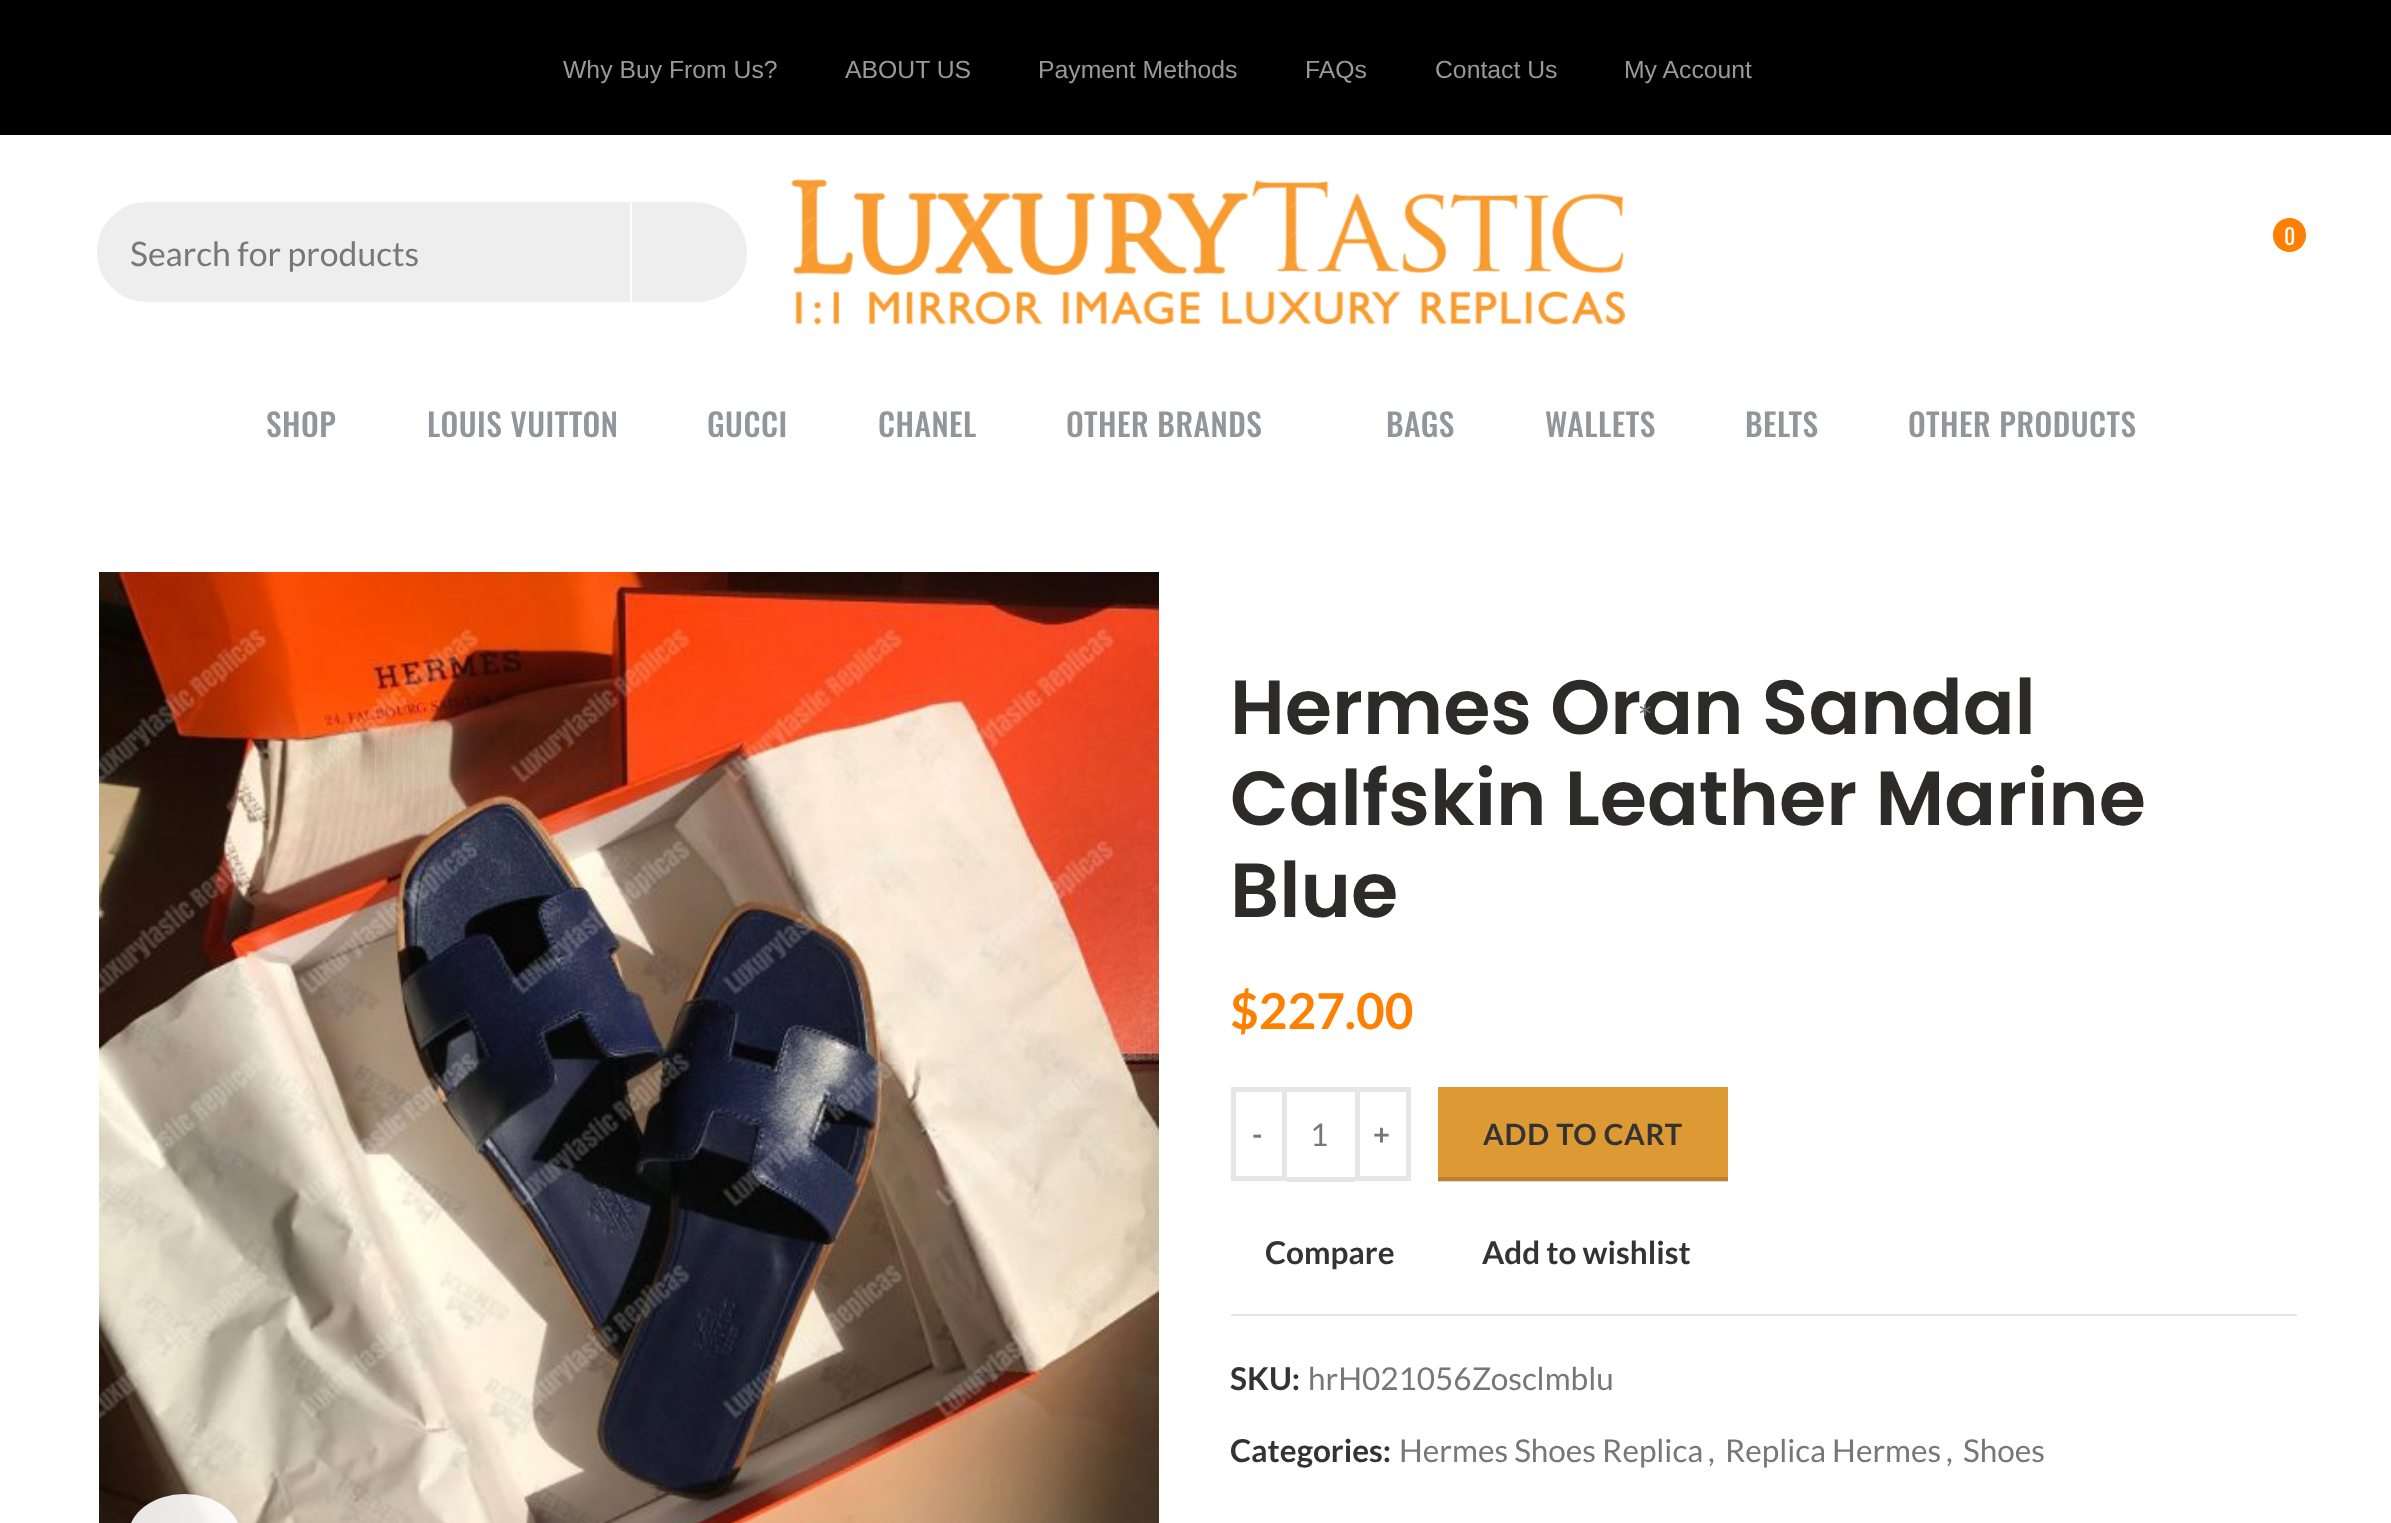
<svg xmlns="http://www.w3.org/2000/svg" width="2391" height="1523">
<rect width="100%" height="100%" fill="#fff"/>
<rect x="1438" y="1181" width="290" height="1" fill="#d9d9d9"/>
<rect width="2391" height="135" fill="#000"/>
<text x="563" y="78" style="font-family:Liberation Sans;font-size:24.75px;fill:#999">Why Buy From Us?</text>
<text x="845" y="78" style="font-family:Liberation Sans;font-size:24.75px;fill:#999">ABOUT US</text>
<text x="1038" y="78" style="font-family:Liberation Sans;font-size:24.75px;fill:#999">Payment Methods</text>
<text x="1305" y="78" style="font-family:Liberation Sans;font-size:24.75px;fill:#999">FAQs</text>
<text x="1435" y="78" style="font-family:Liberation Sans;font-size:24.75px;fill:#999">Contact Us</text>
<text x="1624" y="78" style="font-family:Liberation Sans;font-size:24.75px;fill:#999">My Account</text>
<rect x="96" y="201" width="650" height="102" rx="51" fill="#eee" stroke="#fff" stroke-width="2"/>
<text x="130" y="266" style="font-family:Lato;font-size:33.75px;fill:#777">Search for products</text>
<path d="M630 203h67.5c27.5 0 49.5 22 49.5 49.5c0 27.5-22 49.5-49.5 49.5h-67.5z" fill="#eee"/>
<rect x="630" y="203" width="2" height="99" fill="#fff"/>
<image x="791" y="179" width="834" height="146" href="media/1.png"/>
<rect x="2273" y="218" width="33" height="34" rx="16.5" fill="#ff8000"/>
<text x="2284" y="245" style="font-family:Oswald;font-size:22px;fill:#fff">0</text>
<text x="1230" y="734" style="font-family:Poppins;font-size:76.5px;font-weight:600;fill:#2d2a2a">Hermes Oran Sandal</text>
<text x="1638" y="731" style="font-family:Lato;font-size:36px;fill:#716f6f">*</text>
<text x="266" y="437" style="font-family:Oswald;font-size:31.5px;font-weight:500;letter-spacing:0.5px;fill:#90969a">SHOP</text>
<text x="427" y="437" style="font-family:Oswald;font-size:31.5px;font-weight:500;letter-spacing:0.5px;fill:#90969a">LOUIS VUITTON</text>
<text x="707" y="437" style="font-family:Oswald;font-size:31.5px;font-weight:500;letter-spacing:0.5px;fill:#90969a">GUCCI</text>
<text x="878" y="437" style="font-family:Oswald;font-size:31.5px;font-weight:500;letter-spacing:0.5px;fill:#90969a">CHANEL</text>
<text x="1066" y="437" style="font-family:Oswald;font-size:31.5px;font-weight:500;letter-spacing:0.5px;fill:#90969a">OTHER BRANDS</text>
<text x="1386" y="437" style="font-family:Oswald;font-size:31.5px;font-weight:500;letter-spacing:0.5px;fill:#90969a">BAGS</text>
<text x="1545" y="437" style="font-family:Oswald;font-size:31.5px;font-weight:500;letter-spacing:0.5px;fill:#90969a">WALLETS</text>
<text x="1745" y="437" style="font-family:Oswald;font-size:31.5px;font-weight:500;letter-spacing:0.5px;fill:#90969a">BELTS</text>
<text x="1908" y="437" style="font-family:Oswald;font-size:31.5px;font-weight:500;letter-spacing:0.5px;fill:#90969a">OTHER PRODUCTS</text>
<image x="99" y="572" width="1060" height="951" href="media/2.png"/>
<rect x="128" y="1494" width="113" height="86" rx="56.5" fill="#ffffffe6"/>
<text x="1230" y="825" style="font-family:Poppins;font-size:76.5px;font-weight:600;fill:#2d2a2a">Calfskin Leather Marine</text>
<text x="1230" y="917" style="font-family:Poppins;font-size:76.5px;font-weight:600;fill:#2d2a2a">Blue</text>
<text x="1230" y="1029" style="font-family:Lato;font-size:49.5px;font-weight:bold;fill:#ff8000">$227.00</text>
<rect x="1233.5" y="1089.5" width="51" height="89" fill="none" stroke="#e6e6e6" stroke-width="5"/>
<text x="1252" y="1145" style="font-family:Lato;font-size:29.25px;font-weight:bold;letter-spacing:0.75px;fill:#777">-</text>
<rect x="1287" y="1087" width="68" height="5" fill="#e6e6e6"/>
<rect x="1287" y="1177" width="68" height="5" fill="#e6e6e6"/>
<text x="1310" y="1146" style="font-family:Lato;font-size:31.5px;fill:#777">1</text>
<rect x="1357.5" y="1089.5" width="51" height="89" fill="none" stroke="#e6e6e6" stroke-width="5"/>
<text x="1373" y="1145" style="font-family:Lato;font-size:29.25px;font-weight:bold;letter-spacing:0.75px;fill:#777">+</text>
<rect x="1438" y="1087" width="290" height="90" fill="#d93"/>
<rect x="1438" y="1177" width="290" height="4" fill="#bc822b"/>
<text x="1483" y="1145" style="font-family:Lato;font-size:29.25px;font-weight:bold;letter-spacing:0.75px;fill:#333">ADD TO CART</text>
<text x="1265" y="1264" style="font-family:Lato;font-size:31.5px;font-weight:bold;fill:#333">Compare</text>
<text x="1482" y="1264" style="font-family:Lato;font-size:31.5px;font-weight:bold;fill:#333">Add to wishlist</text>
<rect x="1231" y="1314" width="1066" height="2" fill="#e6e6e6"/>
<text x="1230" y="1390" style="font-family:Lato;font-size:31.5px;font-weight:bold;fill:#333">SKU:</text>
<text x="1308" y="1390" style="font-family:Lato;font-size:31.5px;fill:#777">hrH021056Zosclmblu</text>
<text x="1230" y="1462" style="font-family:Lato;font-size:31.5px;font-weight:bold;fill:#333">Categories:</text>
<text x="1399" y="1462" style="font-family:Lato;font-size:31.5px;fill:#777">Hermes Shoes Replica</text>
<text x="1708" y="1462" style="font-family:Lato;font-size:31.5px;fill:#777">,</text>
<text x="1725" y="1462" style="font-family:Lato;font-size:31.5px;fill:#777">Replica Hermes</text>
<text x="1946" y="1462" style="font-family:Lato;font-size:31.5px;fill:#777">,</text>
<text x="1963" y="1462" style="font-family:Lato;font-size:31.5px;fill:#777">Shoes</text>
</svg>
